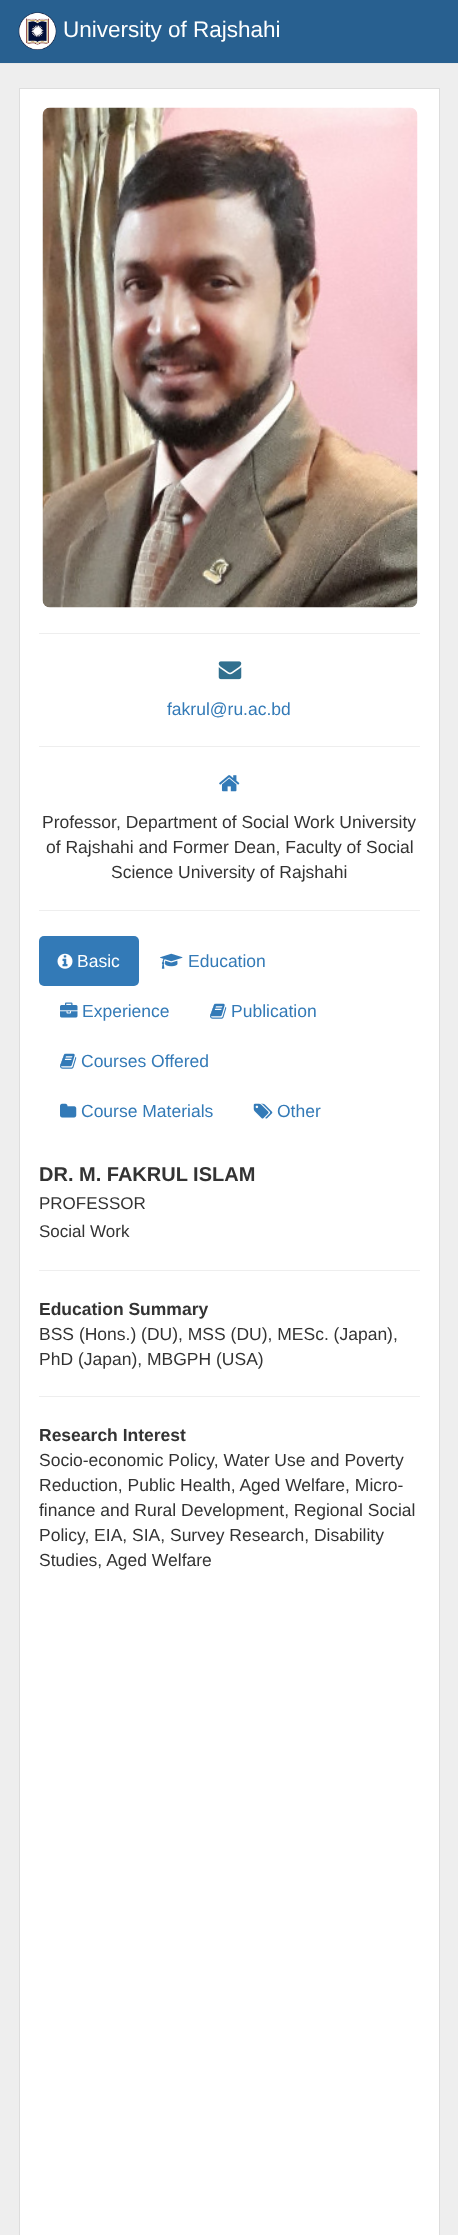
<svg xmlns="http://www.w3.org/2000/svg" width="458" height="2235">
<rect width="100%" height="100%" fill="#eee"/>
<rect width="458" height="63" fill="#286090"/>
<rect y="63" width="458" height="1" fill="#e7e7e7"/>
<image x="18" y="12" width="39" height="38" href="media/1.png"/>
<text x="63" y="37" style="font-family:Liberation Sans;font-size:22.5px;fill:#fff">University of Rajshahi</text>
<rect x="19.5" y="88.5" width="420" height="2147" fill="#fff" stroke="#ddd"/>
<image x="42" y="107" width="376" height="501" href="media/2.png"/>
<rect x="39" y="633" width="381" height="1" fill="#eee"/>
<image x="218" y="661" width="24" height="19" href="media/3.png"/>
<text x="167" y="715" style="font-family:Liberation Sans;font-size:17.5px;fill:#337ab7">fakrul@ru.ac.bd</text>
<rect x="39" y="746" width="381" height="1" fill="#eee"/>
<image x="219" y="775" width="21" height="17" href="media/4.png"/>
<text x="42" y="828" style="font-family:Liberation Sans;font-size:17.5px;fill:#333">Professor, Department of Social Work University</text>
<text x="46" y="853" style="font-family:Liberation Sans;font-size:17.5px;fill:#333">of Rajshahi and Former Dean, Faculty of Social</text>
<text x="111" y="878" style="font-family:Liberation Sans;font-size:17.5px;fill:#333">Science University of Rajshahi</text>
<rect x="39" y="910" width="381" height="1" fill="#eee"/>
<rect x="39" y="936" width="100" height="50" rx="5" fill="#337ab7"/>
<image x="57" y="953" width="16" height="16" href="media/5.png"/>
<text x="77" y="967" style="font-family:Liberation Sans;font-size:17.5px;fill:#fff">Basic</text>
<image x="160" y="953" width="23" height="16" href="media/6.png"/>
<text x="188" y="967" style="font-family:Liberation Sans;font-size:17.5px;fill:#337ab7">Education</text>
<image x="60" y="1002" width="18" height="16" href="media/7.png"/>
<text x="82" y="1017" style="font-family:Liberation Sans;font-size:17.5px;fill:#337ab7">Experience</text>
<image x="210" y="1003" width="17" height="16" href="media/8.png"/>
<text x="231" y="1017" style="font-family:Liberation Sans;font-size:17.5px;fill:#337ab7">Publication</text>
<image x="60" y="1053" width="17" height="16" href="media/8.png"/>
<text x="81" y="1067" style="font-family:Liberation Sans;font-size:17.5px;fill:#337ab7">Courses Offered</text>
<image x="60" y="1103" width="17" height="15" href="media/9.png"/>
<text x="81" y="1117" style="font-family:Liberation Sans;font-size:17.5px;fill:#337ab7">Course Materials</text>
<image x="253" y="1103" width="20" height="16" href="media/10.png"/>
<text x="277" y="1117" style="font-family:Liberation Sans;font-size:17.5px;fill:#337ab7">Other</text>
<text x="39" y="1181" style="font-family:Liberation Sans;font-size:20px;font-weight:bold;fill:#333">DR. M. FAKRUL ISLAM</text>
<text x="39" y="1209" style="font-family:Liberation Sans;font-size:17px;fill:#333">PROFESSOR</text>
<text x="39" y="1237" style="font-family:Liberation Sans;font-size:17px;fill:#333">Social Work</text>
<rect x="39" y="1270" width="381" height="1" fill="#eee"/>
<text x="39" y="1315" style="font-family:Liberation Sans;font-size:17.5px;font-weight:bold;fill:#333">Education Summary</text>
<text x="39" y="1340" style="font-family:Liberation Sans;font-size:17.5px;fill:#333">BSS (Hons.) (DU), MSS (DU), MESc. (Japan),</text>
<text x="39" y="1365" style="font-family:Liberation Sans;font-size:17.5px;fill:#333">PhD (Japan), MBGPH (USA)</text>
<rect x="39" y="1396" width="381" height="1" fill="#eee"/>
<text x="39" y="1441" style="font-family:Liberation Sans;font-size:17.5px;font-weight:bold;fill:#333">Research Interest</text>
<text x="39" y="1466" style="font-family:Liberation Sans;font-size:17.5px;fill:#333">Socio-economic Policy, Water Use and Poverty</text>
<text x="39" y="1491" style="font-family:Liberation Sans;font-size:17.5px;fill:#333">Reduction, Public Health, Aged Welfare, Micro-</text>
<text x="39" y="1516" style="font-family:Liberation Sans;font-size:17.5px;fill:#333">finance and Rural Development, Regional Social</text>
<text x="39" y="1541" style="font-family:Liberation Sans;font-size:17.5px;fill:#333">Policy, EIA, SIA, Survey Research, Disability</text>
<text x="39" y="1566" style="font-family:Liberation Sans;font-size:17.5px;fill:#333">Studies, Aged Welfare</text>
</svg>
